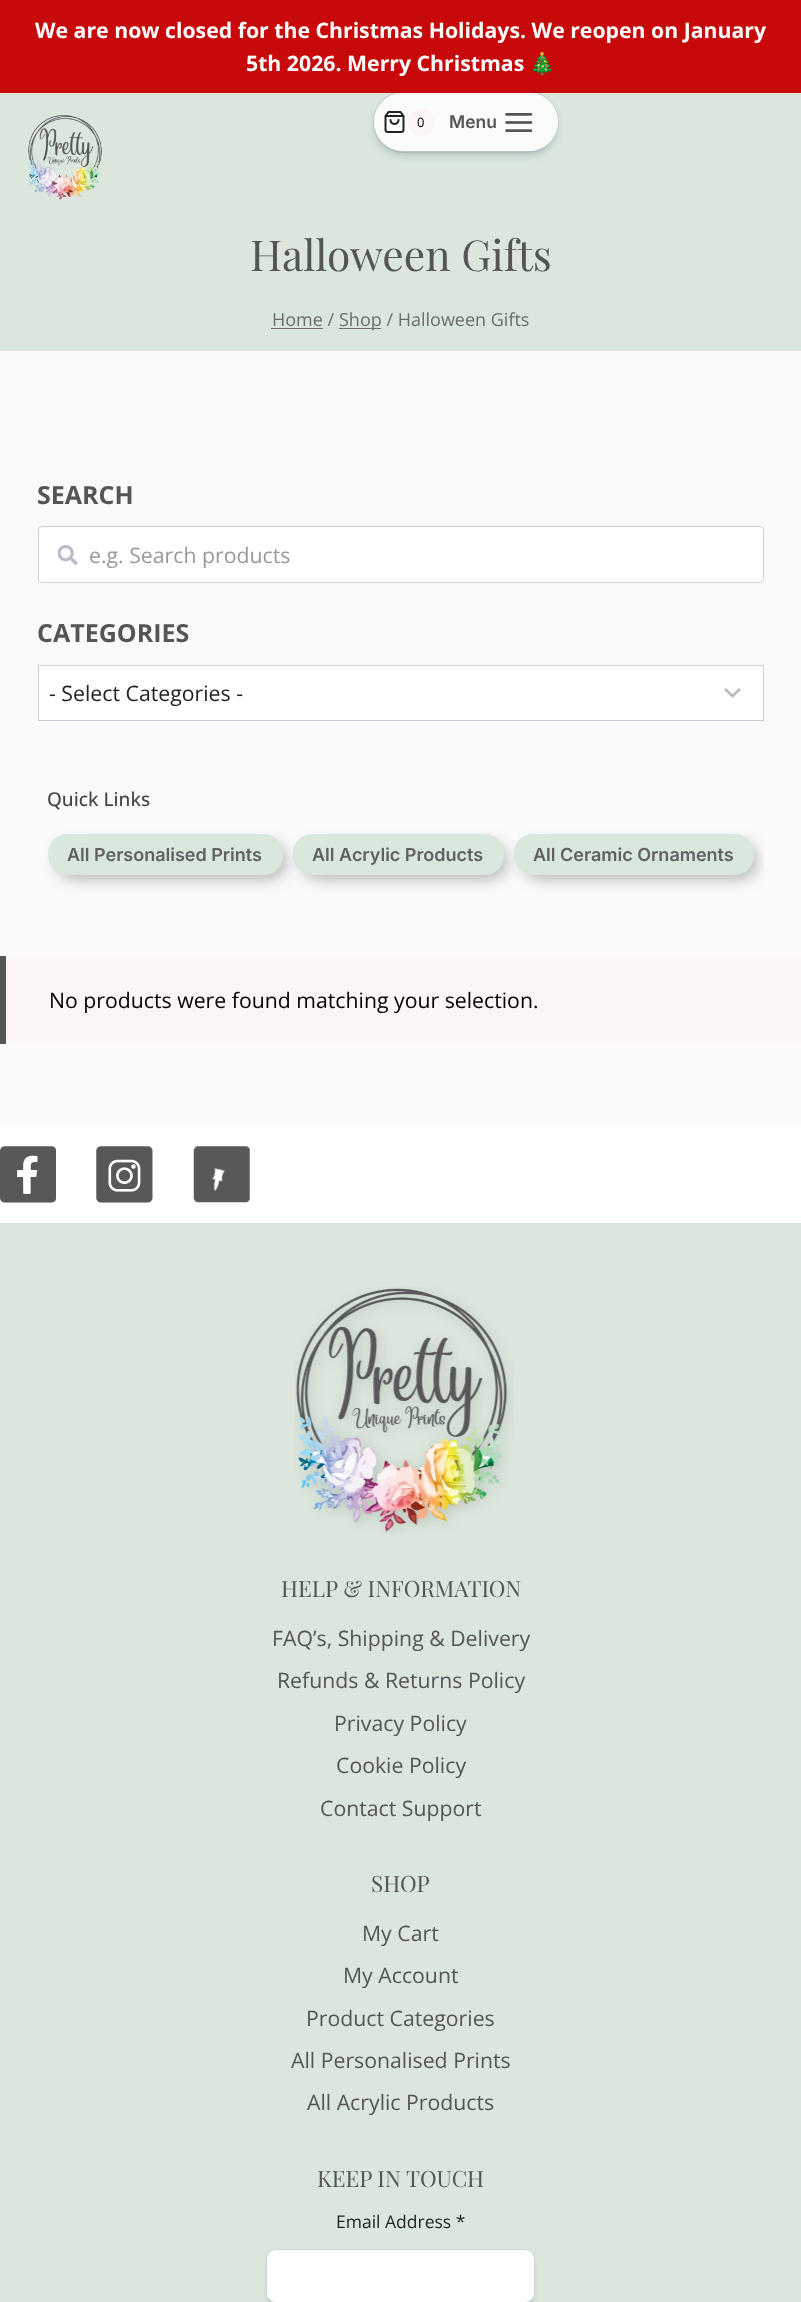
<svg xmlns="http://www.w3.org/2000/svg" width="801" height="2302">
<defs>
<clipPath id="clip1"><path d="M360 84h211v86h-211zm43 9h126c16 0 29 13 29 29c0 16-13 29-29 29h-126c-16 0-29-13-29-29c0-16 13-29 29-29z" clip-rule="evenodd"/></clipPath>
<clipPath id="clip2"><rect x="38" y="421" width="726" height="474"/></clipPath>
</defs>
<rect width="100%" height="100%" fill="#fafafa"/>
<rect y="93" width="801" height="258" fill="#dbe7dd"/>
<rect x="373.5" y="91.5" width="185" height="61" rx="30.5" fill="none" stroke="#cad7d1"/>
<g clip-path="url(#clip1)">
<rect x="376" y="100" width="179" height="54" rx="27" fill="#091e4240" filter="blur(5px)"/>
</g>
<rect width="801" height="93" fill="#c80909"/>
<text x="35" y="38" style="font-family:Open Sans;font-size:21.25px;font-weight:bold;fill:#fff">We are now closed for the Christmas Holidays. We reopen on January</text>
<text x="246" y="71" style="font-family:Open Sans;font-size:21.25px;font-weight:bold;fill:#fff">5th 2026. Merry Christmas</text>
<text x="529" y="71" style="font-family:Noto Color Emoji;font-size:21.25px;font-weight:bold;fill:#fff">🎄</text>
<image x="28" y="115" width="74" height="85" href="media/1.png"/>
<rect x="374" y="93" width="184" height="58" rx="29" fill="#ffffffd9"/>
<rect x="374.5" y="93.5" width="183" height="57" rx="28.5" fill="none" stroke="#ffffff4d"/>
<image x="384" y="111" width="21" height="22" href="media/2.png"/>
<circle cx="421.5" cy="122.5" r="13.5" fill="#fcf5f5"/>
<text x="417" y="127" style="font-family:Open Sans;font-size:13px;fill:#000">0</text>
<text x="449" y="128" style="font-family:Inter;font-size:17.5px;font-weight:600;fill:#555">Menu</text>
<image x="505" y="113" width="28" height="19" href="media/3.png"/>
<text x="250" y="271" style="font-family:Playfair Display;font-size:42.5px;fill:#555">Halloween Gifts</text>
<text x="272" y="326" style="font-family:Open Sans;font-size:18px;fill:#6c6c6c">Home /</text>
<rect x="271" y="328" width="52" height="1" fill="#6c6c6c"/>
<rect x="339" y="328" width="42" height="1" fill="#6c6c6c"/>
<text x="339" y="326" style="font-family:Open Sans;font-size:18px;fill:#6c6c6c">Shop / Halloween Gifts</text>
<text x="37" y="504" style="font-family:Open Sans;font-size:25px;font-weight:bold;fill:#555">SEARCH</text>
<rect x="38.5" y="526.5" width="725" height="56" rx="3.5" fill="#fff" stroke="#ccd0dc"/>
<image x="58" y="545" width="20" height="20" href="media/4.png"/>
<text x="89" y="563" style="font-family:Open Sans;font-size:21.25px;fill:#999">e.g. Search products</text>
<text x="37" y="642" style="font-family:Open Sans;font-size:25px;font-weight:bold;fill:#555">CATEGORIES</text>
<rect x="39" y="666" width="724" height="54" fill="#fff"/>
<path d="M725 689l7.5 7l7.5-7" fill="none" stroke="#bbb" stroke-width="2.5"/>
<rect x="38.5" y="665.5" width="725" height="55" fill="none" stroke="#ccd0dc"/>
<text x="49" y="701" style="font-family:Open Sans;font-size:21.25px;fill:#222">- Select Categories -</text>
<text x="47" y="806" style="font-family:Open Sans;font-size:19px;font-weight:500;fill:#444">Quick Links</text>
<rect x="58" y="844" width="227" height="34" rx="15" fill="#0000004d" filter="blur(8px)"/>
<rect x="48" y="834" width="235" height="41" rx="19" fill="#d9e8dd"/>
<text x="67" y="861" style="font-family:Inter;font-size:18px;font-weight:600;fill:#616161">All Personalised Prints</text>
<rect x="303" y="844" width="203" height="34" rx="15" fill="#0000004d" filter="blur(8px)"/>
<rect x="293" y="834" width="211" height="41" rx="19" fill="#d9e8dd"/>
<text x="312" y="861" style="font-family:Inter;font-size:18px;font-weight:600;fill:#616161">All Acrylic Products</text>
<g clip-path="url(#clip2)">
<rect x="524" y="844" width="232" height="34" rx="15" fill="#0000004d" filter="blur(8px)"/>
</g>
<rect x="514" y="834" width="240" height="41" rx="19" fill="#d9e8dd"/>
<text x="533" y="861" style="font-family:Inter;font-size:18px;font-weight:600;fill:#616161">All Ceramic Ornaments</text>
<rect x="6" y="956" width="795" height="88" fill="#fcf5f5"/>
<rect y="956" width="6" height="88" fill="#555"/>
<text x="49" y="1008" style="font-family:Open Sans;font-size:21.25px;fill:#000">No products were found matching your selection.</text>
<rect y="1223" width="801" height="1079" fill="#dbe7dd"/>
<rect y="1124" width="801" height="99" fill="#fff"/>
<image x="0" y="1146" width="56" height="57" href="media/5.png"/>
<image x="96" y="1146" width="57" height="57" href="media/6.png"/>
<image x="193" y="1146" width="57" height="57" href="media/7.png"/>
<image x="294" y="1286" width="220" height="249" href="media/8.png"/>
<text x="281" y="1597" style="font-family:Playfair Display;font-size:22.5px;fill:#555">HELP &amp; INFORMATION</text>
<text x="272" y="1646" style="font-family:Open Sans;font-size:21.25px;fill:#555">FAQ’s, Shipping &amp; Delivery</text>
<text x="277" y="1688" style="font-family:Open Sans;font-size:21.25px;fill:#555">Refunds &amp; Returns Policy</text>
<text x="334" y="1731" style="font-family:Open Sans;font-size:21.25px;fill:#555">Privacy Policy</text>
<text x="336" y="1773" style="font-family:Open Sans;font-size:21.25px;fill:#555">Cookie Policy</text>
<text x="320" y="1816" style="font-family:Open Sans;font-size:21.25px;fill:#555">Contact Support</text>
<text x="371" y="1892" style="font-family:Playfair Display;font-size:22.5px;fill:#555">SHOP</text>
<text x="362" y="1941" style="font-family:Open Sans;font-size:21.25px;fill:#555">My Cart</text>
<text x="343" y="1983" style="font-family:Open Sans;font-size:21.25px;fill:#555">My Account</text>
<text x="306" y="2026" style="font-family:Open Sans;font-size:21.25px;fill:#555">Product Categories</text>
<text x="291" y="2068" style="font-family:Open Sans;font-size:21.25px;fill:#555">All Personalised Prints</text>
<text x="307" y="2110" style="font-family:Open Sans;font-size:21.25px;fill:#555">All Acrylic Products</text>
<text x="317" y="2187" style="font-family:Playfair Display;font-size:22.5px;fill:#555">KEEP IN TOUCH</text>
<text x="336" y="2228" style="font-family:Open Sans;font-size:17.5px;fill:#222">Email Address *</text>
<rect x="270" y="2259" width="261" height="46" rx="6" fill="#0000004d" filter="blur(3px)"/>
<rect x="266.5" y="2249.5" width="268" height="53" rx="9.5" fill="#fff" stroke="#cbd5e0"/>
</svg>
